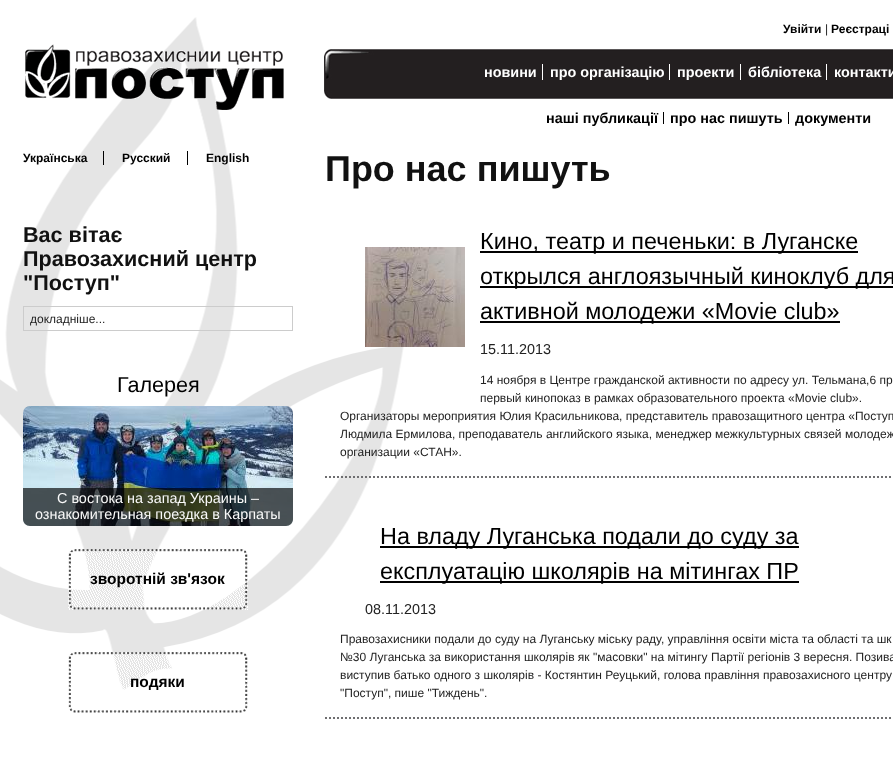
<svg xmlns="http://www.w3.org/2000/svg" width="893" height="762">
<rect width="100%" height="100%" fill="#fff"/>
<image x="0" y="17" width="404" height="673" href="media/1.png"/>
<text x="783" y="33" style="font-family:Liberation Sans;font-size:12px;font-weight:bold;fill:#000">Увійти</text>
<text x="825" y="33" style="font-family:Liberation Sans;font-size:12px;fill:#222">|</text>
<text x="831" y="33" style="font-family:Liberation Sans;font-size:12px;font-weight:bold;fill:#000">Реєстраці</text>
<image x="25" y="44" width="259" height="66" href="media/2.png"/>
<image x="324" y="49" width="569" height="50" href="media/3.png"/>
<rect x="826" y="64" width="1" height="16" fill="#fff"/>
<text x="748" y="77" style="font-family:Liberation Sans;font-size:14.4px;font-weight:bold;fill:#fff">бібліотека</text>
<rect x="663" y="112" width="1" height="12" fill="#000"/>
<text x="546" y="123" style="font-family:Liberation Sans;font-size:14.4px;font-weight:bold;fill:#000">наші публикації</text>
<rect x="788" y="112" width="1" height="12" fill="#000"/>
<text x="670" y="123" style="font-family:Liberation Sans;font-size:14.4px;font-weight:bold;fill:#000">про нас пишуть</text>
<text x="795" y="123" style="font-family:Liberation Sans;font-size:14.4px;font-weight:bold;fill:#000">документи</text>
<rect x="542" y="64" width="1" height="16" fill="#fff"/>
<text x="484" y="77" style="font-family:Liberation Sans;font-size:14.4px;font-weight:bold;fill:#fff">новини</text>
<rect x="669" y="64" width="1" height="16" fill="#fff"/>
<text x="550" y="77" style="font-family:Liberation Sans;font-size:14.4px;font-weight:bold;fill:#fff">про організацію</text>
<rect x="740" y="64" width="1" height="16" fill="#fff"/>
<text x="677" y="77" style="font-family:Liberation Sans;font-size:14.4px;font-weight:bold;fill:#fff">проекти</text>
<text x="834" y="77" style="font-family:Liberation Sans;font-size:14.4px;font-weight:bold;fill:#fff">контакти</text>
<text x="23" y="162" style="font-family:Liberation Sans;font-size:12px;font-weight:bold;fill:#000">Українська</text>
<rect x="103" y="151" width="1" height="14" fill="#000"/>
<text x="122" y="162" style="font-family:Liberation Sans;font-size:12px;font-weight:bold;fill:#000">Русский</text>
<rect x="187" y="151" width="1" height="14" fill="#000"/>
<text x="206" y="162" style="font-family:Liberation Sans;font-size:12px;font-weight:bold;fill:#000">English</text>
<text x="23" y="242" style="font-family:Liberation Sans;font-size:21.6px;font-weight:bold;fill:#111">Вас вітає</text>
<text x="23" y="266" style="font-family:Liberation Sans;font-size:21.6px;font-weight:bold;fill:#111">Правозахисний центр</text>
<text x="23" y="290" style="font-family:Liberation Sans;font-size:21.6px;font-weight:bold;fill:#111">"Поступ"</text>
<rect x="23.5" y="306.5" width="269" height="24" fill="none" stroke="#ccc"/>
<text x="30" y="323" style="font-family:Liberation Sans;font-size:12px;fill:#222">докладнiше...</text>
<text x="117" y="392" style="font-family:Liberation Sans;font-size:21.6px;fill:#000">Галерея</text>
<image x="23" y="406" width="270" height="120" href="media/4.png"/>
<path d="M23 488h270v31c0 4-3 7-7 7h-256c-4 0-7-3-7-7z" fill="#000000a6"/>
<text x="57" y="503" style="font-family:Liberation Sans;font-size:14.4px;fill:#f9f9f9">С востока на запад Украины –</text>
<text x="35" y="519" style="font-family:Liberation Sans;font-size:14.4px;fill:#f9f9f9">ознакомительная поездка в Карпаты</text>
<image x="68" y="549" width="180" height="61" href="media/5.png"/>
<text x="90" y="584" style="font-family:Liberation Sans;font-size:15.5px;font-weight:bold;fill:#000">зворотній зв'язок</text>
<image x="68" y="652" width="180" height="61" href="media/6.png"/>
<text x="130" y="687" style="font-family:Liberation Sans;font-size:15.5px;font-weight:bold;fill:#000">подяки</text>
<text x="325" y="181" style="font-family:Liberation Sans;font-size:36px;font-weight:bold;fill:#111">Про нас пишуть</text>
<image x="365" y="247" width="100" height="100" href="media/7.png"/>
<rect x="480" y="251" width="378" height="2" fill="#000"/>
<text x="480" y="249" style="font-family:Liberation Sans;font-size:23.4px;fill:#000">Кино, театр и печеньки: в Луганске</text>
<rect x="480" y="286" width="413" height="2" fill="#000"/>
<text x="480" y="284" style="font-family:Liberation Sans;font-size:23.4px;fill:#000">открылся англоязычный киноклуб для</text>
<rect x="480" y="321" width="360" height="2" fill="#000"/>
<text x="480" y="319" style="font-family:Liberation Sans;font-size:23.4px;fill:#000">активной молодежи «Movie club»</text>
<text x="480" y="354" style="font-family:Liberation Sans;font-size:14.4px;fill:#222">15.11.2013</text>
<path d="M325 477h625" fill="none" stroke="#6e6e70" stroke-width="2" stroke-dasharray="2 2"/>
<text x="480" y="384" style="font-family:Liberation Sans;font-size:12px;fill:#222">14 ноября в Центре гражданской активности по адресу ул. Тельмана,6 пр</text>
<text x="480" y="402" style="font-family:Liberation Sans;font-size:12px;fill:#222">первый кинопоказ в рамках образовательного проекта «Movie club».</text>
<text x="340" y="420" style="font-family:Liberation Sans;font-size:12px;fill:#222">Организаторы мероприятия Юлия Красильникова, представитель правозащитного центра «Поступ</text>
<text x="340" y="438" style="font-family:Liberation Sans;font-size:12px;fill:#222">Людмила Ермилова, преподаватель английского языка, менеджер межкультурных связей молодеж</text>
<text x="340" y="456" style="font-family:Liberation Sans;font-size:12px;fill:#222">организации «СТАН».</text>
<rect x="380" y="546" width="419" height="2" fill="#000"/>
<text x="380" y="544" style="font-family:Liberation Sans;font-size:23.4px;fill:#000">На владу Луганська подали до суду за</text>
<rect x="380" y="581" width="419" height="2" fill="#000"/>
<text x="380" y="579" style="font-family:Liberation Sans;font-size:23.4px;fill:#000">експлуатацію школярів на мітингах ПР</text>
<text x="365" y="614" style="font-family:Liberation Sans;font-size:14.4px;fill:#222">08.11.2013</text>
<path d="M325 718h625" fill="none" stroke="#6e6e70" stroke-width="2" stroke-dasharray="2 2"/>
<text x="340" y="643" style="font-family:Liberation Sans;font-size:12px;fill:#222">Правозахисники подали до суду на Луганську міську раду, управління освіти міста та області та шк</text>
<text x="340" y="661" style="font-family:Liberation Sans;font-size:12px;fill:#222">№30 Луганська за використання школярів як "масовки" на мітингу Партії регіонів 3 вересня. Позива</text>
<text x="340" y="679" style="font-family:Liberation Sans;font-size:12px;fill:#222">виступив батько одного з школярів - Костянтин Реуцький, голова правління правозахисного центру</text>
<text x="340" y="697" style="font-family:Liberation Sans;font-size:12px;fill:#222">"Поступ", пише "Тиждень".</text>
</svg>
